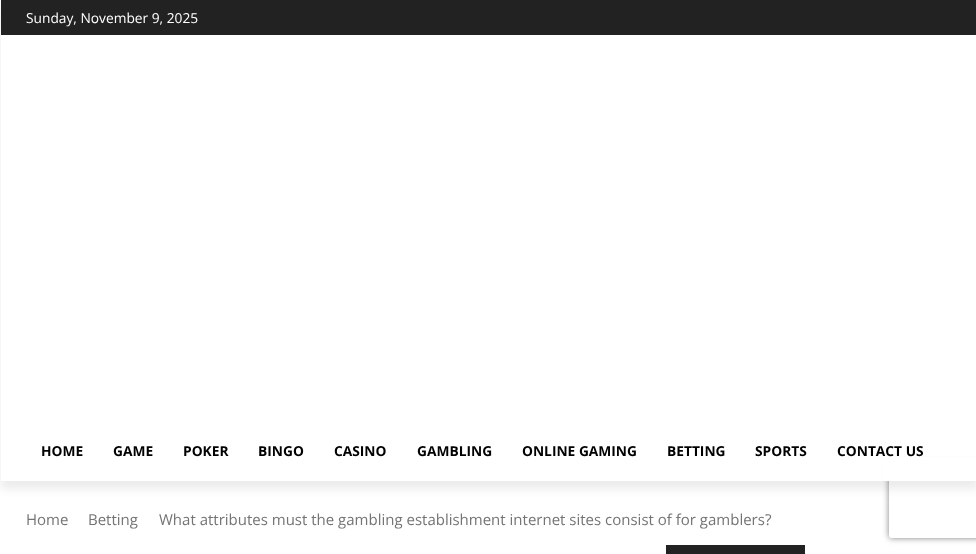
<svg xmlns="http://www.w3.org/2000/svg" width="976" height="554">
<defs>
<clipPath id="clip1"><path d="M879 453h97v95h-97zm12.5 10h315c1.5 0 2.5 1 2.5 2.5v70c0 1.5-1 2.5-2.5 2.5h-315c-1.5 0-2.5-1-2.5-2.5v-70c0-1.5 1-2.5 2.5-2.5z" clip-rule="evenodd"/></clipPath>
<clipPath id="clip2"><path d="M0 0h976v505h-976zm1 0h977v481h-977z" clip-rule="evenodd"/></clipPath>
</defs>
<rect width="100%" height="100%" fill="#fff"/>
<rect x="1" width="975" height="35" fill="#222"/>
<g clip-path="url(#clip1)">
<rect x="889" y="463" width="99" height="75" rx="2.5" fill="#808080" filter="blur(3px)"/>
</g>
<rect x="883" y="457" width="93" height="24" fill="#fff"/>
<g clip-path="url(#clip2)">
<rect x="1" y="8" width="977" height="481" fill="#00000014" filter="blur(5px)"/>
</g>
<text x="26" y="23" style="font-family:Open Sans;font-size:13.75px;fill:#fff">Sunday, November 9, 2025</text>
<text x="41" y="456" style="font-family:Open Sans;font-size:13.75px;font-weight:bold;fill:#000">HOME</text>
<text x="113" y="456" style="font-family:Open Sans;font-size:13.75px;font-weight:bold;fill:#000">GAME</text>
<text x="183" y="456" style="font-family:Open Sans;font-size:13.75px;font-weight:bold;fill:#000">POKER</text>
<text x="258" y="456" style="font-family:Open Sans;font-size:13.75px;font-weight:bold;fill:#000">BINGO</text>
<text x="334" y="456" style="font-family:Open Sans;font-size:13.75px;font-weight:bold;fill:#000">CASINO</text>
<text x="417" y="456" style="font-family:Open Sans;font-size:13.75px;font-weight:bold;fill:#000">GAMBLING</text>
<text x="522" y="456" style="font-family:Open Sans;font-size:13.75px;font-weight:bold;fill:#000">ONLINE GAMING</text>
<text x="667" y="456" style="font-family:Open Sans;font-size:13.75px;font-weight:bold;fill:#000">BETTING</text>
<text x="755" y="456" style="font-family:Open Sans;font-size:13.75px;font-weight:bold;fill:#000">SPORTS</text>
<text x="837" y="456" style="font-family:Open Sans;font-size:13.75px;font-weight:bold;fill:#000">CONTACT US</text>
<text x="26" y="525" style="font-family:Open Sans;font-size:15px;fill:#747474">Home</text>
<text x="88" y="525" style="font-family:Open Sans;font-size:15px;fill:#747474">Betting</text>
<text x="159" y="525" style="font-family:Open Sans;font-size:15px;fill:#747474">What attributes must the gambling establishment internet sites consist of for gamblers?</text>
<rect x="666" y="545" width="139" height="9" fill="#222"/>
</svg>
